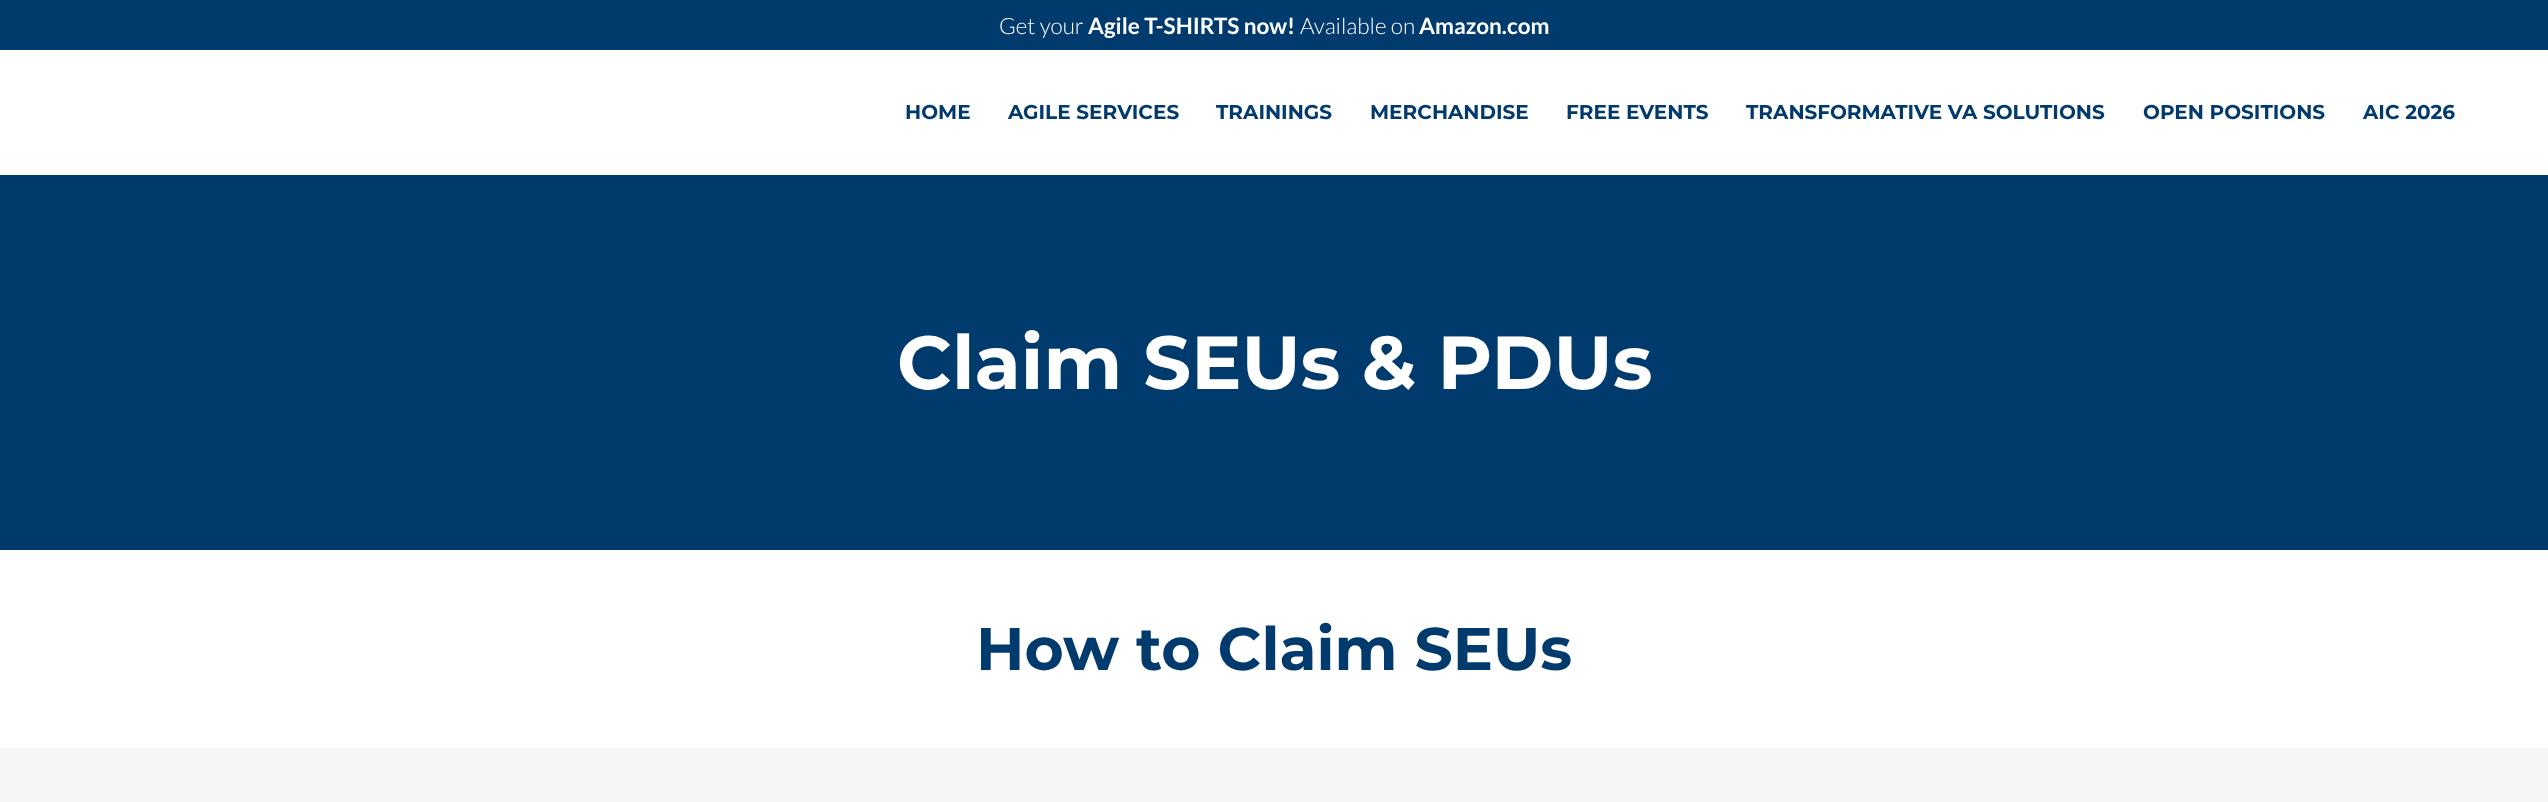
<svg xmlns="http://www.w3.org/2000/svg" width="2548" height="802">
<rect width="100%" height="100%" fill="#fff"/>
<rect width="2548" height="50" fill="#013a6d"/>
<text x="999" y="34" style="font-family:Lato;font-size:22.5px;font-weight:300;fill:#fff">Get your</text>
<text x="1088" y="34" style="font-family:Lato;font-size:22.5px;font-weight:bold;fill:#fff">Agile T-SHIRTS now!</text>
<text x="1300" y="34" style="font-family:Lato;font-size:22.5px;font-weight:300;fill:#fff">Available on</text>
<text x="1419" y="34" style="font-family:Lato;font-size:22.5px;font-weight:bold;fill:#fff">Amazon.com</text>
<text x="905" y="119" style="font-family:Montserrat;font-size:20px;font-weight:bold;fill:#013a6d">HOME</text>
<text x="1008" y="119" style="font-family:Montserrat;font-size:20px;font-weight:bold;fill:#013a6d">AGILE SERVICES</text>
<text x="1216" y="119" style="font-family:Montserrat;font-size:20px;font-weight:bold;fill:#013a6d">TRAININGS</text>
<text x="1370" y="119" style="font-family:Montserrat;font-size:20px;font-weight:bold;fill:#013a6d">MERCHANDISE</text>
<text x="1566" y="119" style="font-family:Montserrat;font-size:20px;font-weight:bold;fill:#013a6d">FREE EVENTS</text>
<text x="1746" y="119" style="font-family:Montserrat;font-size:20px;font-weight:bold;fill:#013a6d">TRANSFORMATIVE VA SOLUTIONS</text>
<text x="2143" y="119" style="font-family:Montserrat;font-size:20px;font-weight:bold;fill:#013a6d">OPEN POSITIONS</text>
<text x="2363" y="119" style="font-family:Montserrat;font-size:20px;font-weight:bold;fill:#013a6d">AIC 2026</text>
<rect y="175" width="2548" height="375" fill="#013a6d"/>
<text x="897" y="389" style="font-family:Montserrat;font-size:75px;font-weight:bold;fill:#fff">Claim SEUs &amp; PDUs</text>
<text x="976" y="670" style="font-family:Montserrat;font-size:60px;font-weight:bold;fill:#013a6d">How to Claim SEUs</text>
<rect y="748" width="2548" height="54" fill="#f6f6f6"/>
</svg>
